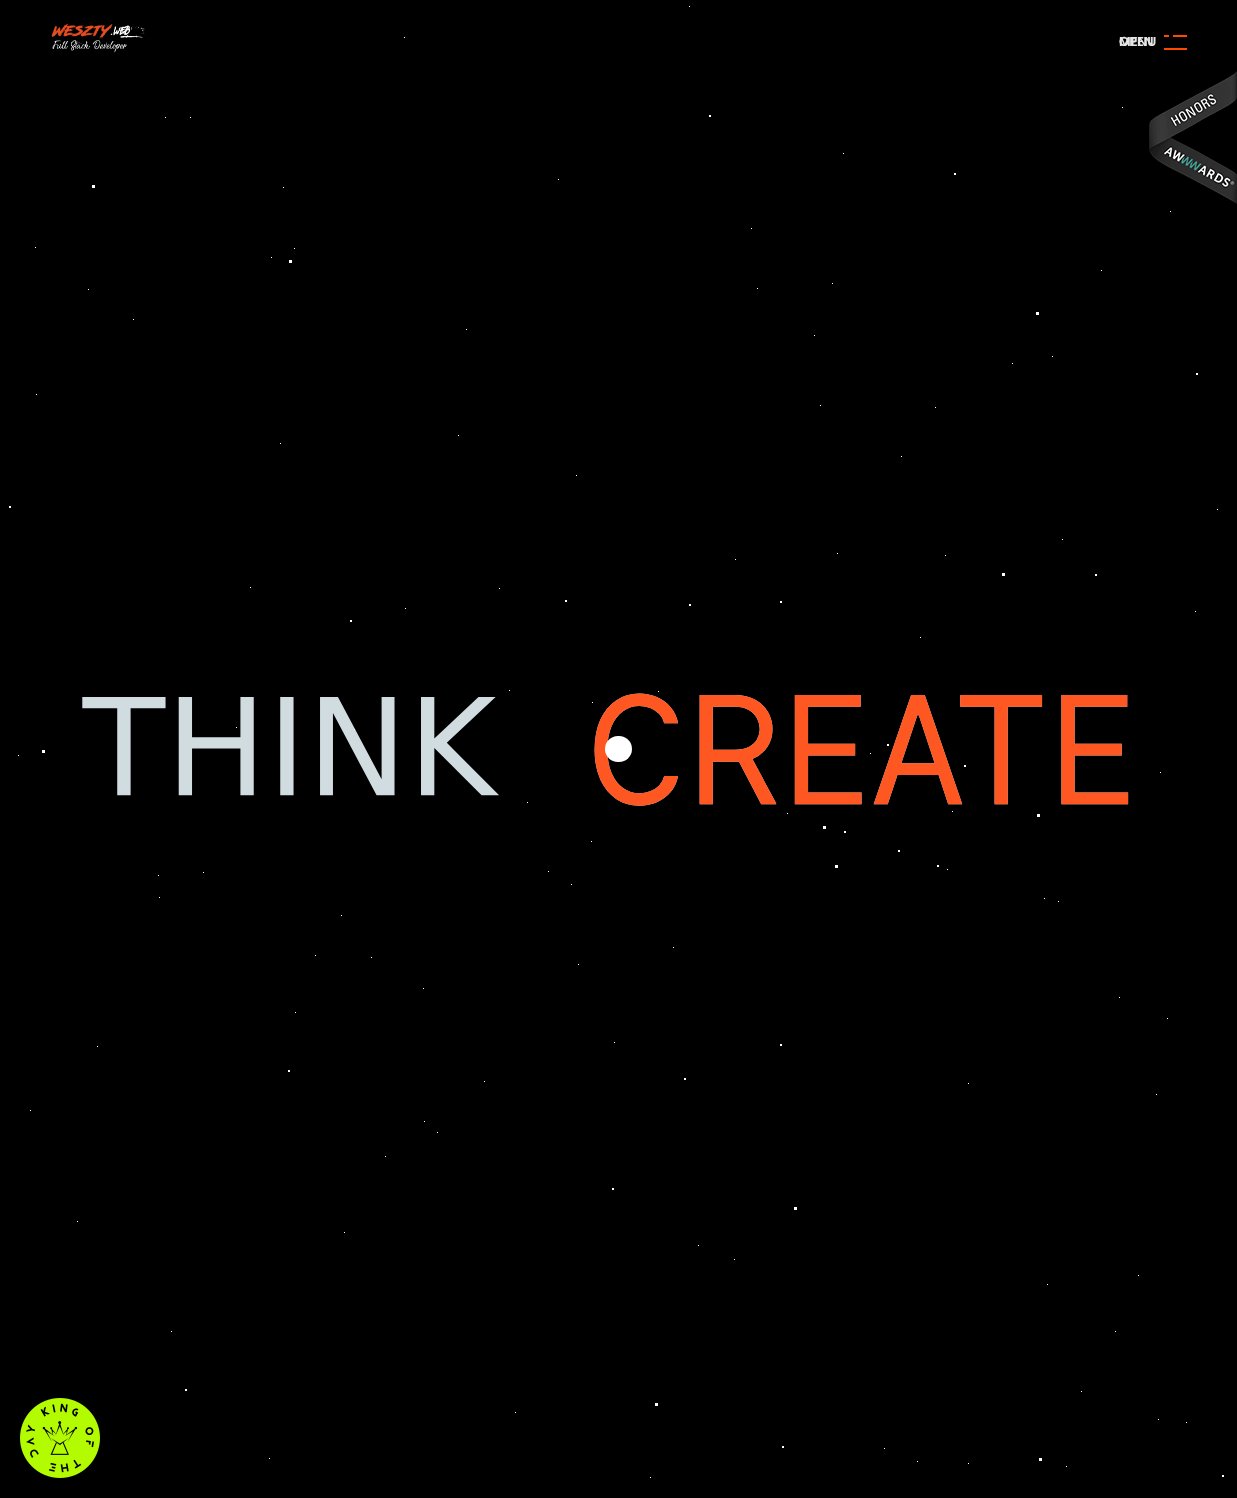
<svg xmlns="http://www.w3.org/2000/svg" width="1237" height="1498">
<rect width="100%" height="100%" fill="#000"/>
<rect x="133" y="319" width="1" height="1" fill="#fff"/>
<rect x="280" y="443" width="1" height="1" fill="#fff"/>
<rect x="499" y="588" width="1" height="1" fill="#fff"/>
<rect x="269" y="1458" width="1" height="1" fill="#fff"/>
<rect x="673" y="947" width="1" height="1" fill="#fff"/>
<rect x="1170" y="211" width="1" height="1" fill="#fff"/>
<rect x="294" y="248" width="1" height="1" fill="#fff"/>
<rect x="171" y="1331" width="1" height="1" fill="#fff"/>
<image x="82" y="693" width="1047" height="113" href="media/3.png"/>
<rect x="592" y="702" width="1" height="1" fill="#fff"/>
<rect x="571" y="884" width="1" height="1" fill="#fff"/>
<rect x="88" y="289" width="1" height="1" fill="#fff"/>
<rect x="968" y="1083" width="1" height="1" fill="#fff"/>
<rect x="283" y="187" width="1" height="1" fill="#fff"/>
<rect x="404" y="37" width="1" height="1" fill="#fff"/>
<rect x="968" y="1463" width="1" height="1" fill="#fff"/>
<rect x="947" y="869" width="1" height="1" fill="#fff"/>
<rect x="591" y="841" width="1" height="1" fill="#fff"/>
<rect x="1047" y="1284" width="1" height="1" fill="#fff"/>
<rect x="354" y="729" width="1" height="1" fill="#fff"/>
<rect x="735" y="559" width="1" height="1" fill="#fff"/>
<rect x="1101" y="270" width="1" height="1" fill="#fff"/>
<rect x="650" y="1477" width="1" height="1" fill="#fff"/>
<rect x="689" y="6" width="1" height="1" fill="#fff"/>
<rect x="190" y="117" width="1" height="1" fill="#fff"/>
<rect x="935" y="407" width="1" height="1" fill="#fff"/>
<rect x="18" y="755" width="1" height="1" fill="#fff"/>
<rect x="757" y="288" width="1" height="1" fill="#fff"/>
<rect x="917" y="1461" width="1" height="1" fill="#fff"/>
<rect x="77" y="1221" width="1" height="1" fill="#fff"/>
<rect x="97" y="1046" width="1" height="1" fill="#fff"/>
<rect x="1058" y="901" width="1" height="1" fill="#fff"/>
<rect x="271" y="257" width="1" height="1" fill="#fff"/>
<rect x="1081" y="1391" width="1" height="1" fill="#fff"/>
<rect x="250" y="587" width="1" height="1" fill="#fff"/>
<rect x="576" y="475" width="1" height="1" fill="#fff"/>
<rect x="295" y="1012" width="1" height="1" fill="#fff"/>
<rect x="437" y="1132" width="1" height="1" fill="#fff"/>
<rect x="424" y="1121" width="1" height="1" fill="#fff"/>
<rect x="1167" y="1018" width="1" height="1" fill="#fff"/>
<rect x="832" y="283" width="1" height="1" fill="#fff"/>
<rect x="614" y="1042" width="1" height="1" fill="#fff"/>
<rect x="1217" y="509" width="1" height="1" fill="#fff"/>
<rect x="405" y="608" width="1" height="1" fill="#fff"/>
<rect x="1066" y="1466" width="1" height="1" fill="#fff"/>
<rect x="1122" y="107" width="1" height="1" fill="#fff"/>
<rect x="458" y="435" width="1" height="1" fill="#fff"/>
<rect x="870" y="753" width="1" height="1" fill="#fff"/>
<rect x="158" y="875" width="1" height="1" fill="#fff"/>
<rect x="36" y="394" width="1" height="1" fill="#fff"/>
<rect x="509" y="690" width="1" height="1" fill="#fff"/>
<rect x="1044" y="898" width="1" height="1" fill="#fff"/>
<rect x="945" y="555" width="1" height="1" fill="#fff"/>
<rect x="952" y="811" width="1" height="1" fill="#fff"/>
<rect x="1062" y="539" width="1" height="1" fill="#fff"/>
<rect x="920" y="637" width="1" height="1" fill="#fff"/>
<rect x="1156" y="1094" width="1" height="1" fill="#fff"/>
<rect x="558" y="179" width="1" height="1" fill="#fff"/>
<rect x="780" y="1044" width="2" height="2" fill="#fff"/>
<rect x="780" y="601" width="2" height="2" fill="#fff"/>
<rect x="1196" y="373" width="2" height="2" fill="#fff"/>
<rect x="565" y="600" width="2" height="2" fill="#fff"/>
<rect x="612" y="1188" width="2" height="2" fill="#fff"/>
<rect x="689" y="604" width="2" height="2" fill="#fff"/>
<rect x="185" y="1389" width="2" height="2" fill="#fff"/>
<rect x="9" y="506" width="2" height="2" fill="#fff"/>
<rect x="709" y="115" width="2" height="2" fill="#fff"/>
<rect x="684" y="1078" width="2" height="2" fill="#fff"/>
<rect x="844" y="831" width="2" height="2" fill="#fff"/>
<rect x="1095" y="574" width="2" height="2" fill="#fff"/>
<rect x="898" y="850" width="2" height="2" fill="#fff"/>
<rect x="350" y="620" width="2" height="2" fill="#fff"/>
<rect x="782" y="1446" width="2" height="2" fill="#fff"/>
<rect x="1222" y="1475" width="2" height="2" fill="#fff"/>
<rect x="964" y="765" width="2" height="2" fill="#fff"/>
<rect x="887" y="744" width="2" height="2" fill="#fff"/>
<rect x="288" y="1070" width="2" height="2" fill="#fff"/>
<rect x="954" y="173" width="2" height="2" fill="#fff"/>
<rect x="937" y="865" width="2" height="2" fill="#fff"/>
<rect x="698" y="1245" width="1" height="1" fill="#fff"/>
<rect x="901" y="456" width="1" height="1" fill="#fff"/>
<rect x="751" y="228" width="1" height="1" fill="#fff"/>
<rect x="1195" y="611" width="1" height="1" fill="#fff"/>
<rect x="1119" y="997" width="1" height="1" fill="#fff"/>
<rect x="466" y="329" width="1" height="1" fill="#fff"/>
<rect x="658" y="691" width="1" height="1" fill="#fff"/>
<rect x="315" y="955" width="1" height="1" fill="#fff"/>
<rect x="1158" y="1419" width="1" height="1" fill="#fff"/>
<rect x="236" y="727" width="1" height="1" fill="#fff"/>
<rect x="423" y="988" width="1" height="1" fill="#fff"/>
<rect x="30" y="1110" width="1" height="1" fill="#fff"/>
<rect x="578" y="964" width="1" height="1" fill="#fff"/>
<rect x="371" y="957" width="1" height="1" fill="#fff"/>
<rect x="1115" y="1331" width="1" height="1" fill="#fff"/>
<rect x="787" y="813" width="1" height="1" fill="#fff"/>
<rect x="814" y="335" width="1" height="1" fill="#fff"/>
<rect x="734" y="1259" width="1" height="1" fill="#fff"/>
<rect x="35" y="247" width="1" height="1" fill="#fff"/>
<rect x="484" y="1081" width="1" height="1" fill="#fff"/>
<rect x="203" y="872" width="1" height="1" fill="#fff"/>
<rect x="341" y="915" width="1" height="1" fill="#fff"/>
<rect x="1160" y="772" width="1" height="1" fill="#fff"/>
<rect x="884" y="1448" width="1" height="1" fill="#fff"/>
<rect x="515" y="1412" width="1" height="1" fill="#fff"/>
<rect x="837" y="553" width="1" height="1" fill="#fff"/>
<rect x="344" y="1232" width="1" height="1" fill="#fff"/>
<rect x="548" y="871" width="1" height="1" fill="#fff"/>
<rect x="159" y="897" width="1" height="1" fill="#fff"/>
<rect x="1012" y="363" width="1" height="1" fill="#fff"/>
<rect x="1138" y="1275" width="1" height="1" fill="#fff"/>
<rect x="843" y="153" width="1" height="1" fill="#fff"/>
<rect x="820" y="405" width="1" height="1" fill="#fff"/>
<rect x="385" y="1156" width="1" height="1" fill="#fff"/>
<rect x="1186" y="1422" width="1" height="1" fill="#fff"/>
<rect x="527" y="802" width="1" height="1" fill="#fff"/>
<rect x="165" y="117" width="1" height="1" fill="#fff"/>
<rect x="1052" y="356" width="1" height="1" fill="#fff"/>
<rect x="1037" y="814" width="3" height="3" fill="#fff"/>
<rect x="1039" y="1458" width="3" height="3" fill="#fff"/>
<rect x="42" y="750" width="3" height="3" fill="#fff"/>
<rect x="794" y="1207" width="3" height="3" fill="#fff"/>
<rect x="1036" y="312" width="3" height="3" fill="#fff"/>
<rect x="823" y="826" width="3" height="3" fill="#fff"/>
<rect x="1002" y="573" width="3" height="3" fill="#fff"/>
<rect x="92" y="185" width="3" height="3" fill="#fff"/>
<rect x="835" y="865" width="3" height="3" fill="#fff"/>
<rect x="289" y="260" width="3" height="3" fill="#fff"/>
<rect x="655" y="1403" width="3" height="3" fill="#fff"/>
<image x="51" y="23" width="94" height="30" href="media/1.png"/>
<text x="1119" y="46" style="font-family:Poppins;font-size:13px;font-weight:600;fill:#e6e6e6">MENU</text>
<text x="1119" y="46" style="font-family:Poppins;font-size:13px;font-weight:600;fill:#e6e6e6">OPEN</text>
<rect x="1164" y="35" width="5" height="2" fill="#ff4800"/>
<rect x="1173" y="35" width="14" height="2" fill="#ff4800"/>
<rect x="1164" y="48" width="23" height="2" fill="#ff4800"/>
<image x="1149" y="71" width="88" height="133" href="media/2.png"/>
<rect x="605" y="736" width="27" height="26" rx="13" fill="#fff"/>
<image x="20" y="1398" width="80" height="80" href="media/4.png"/>
</svg>
